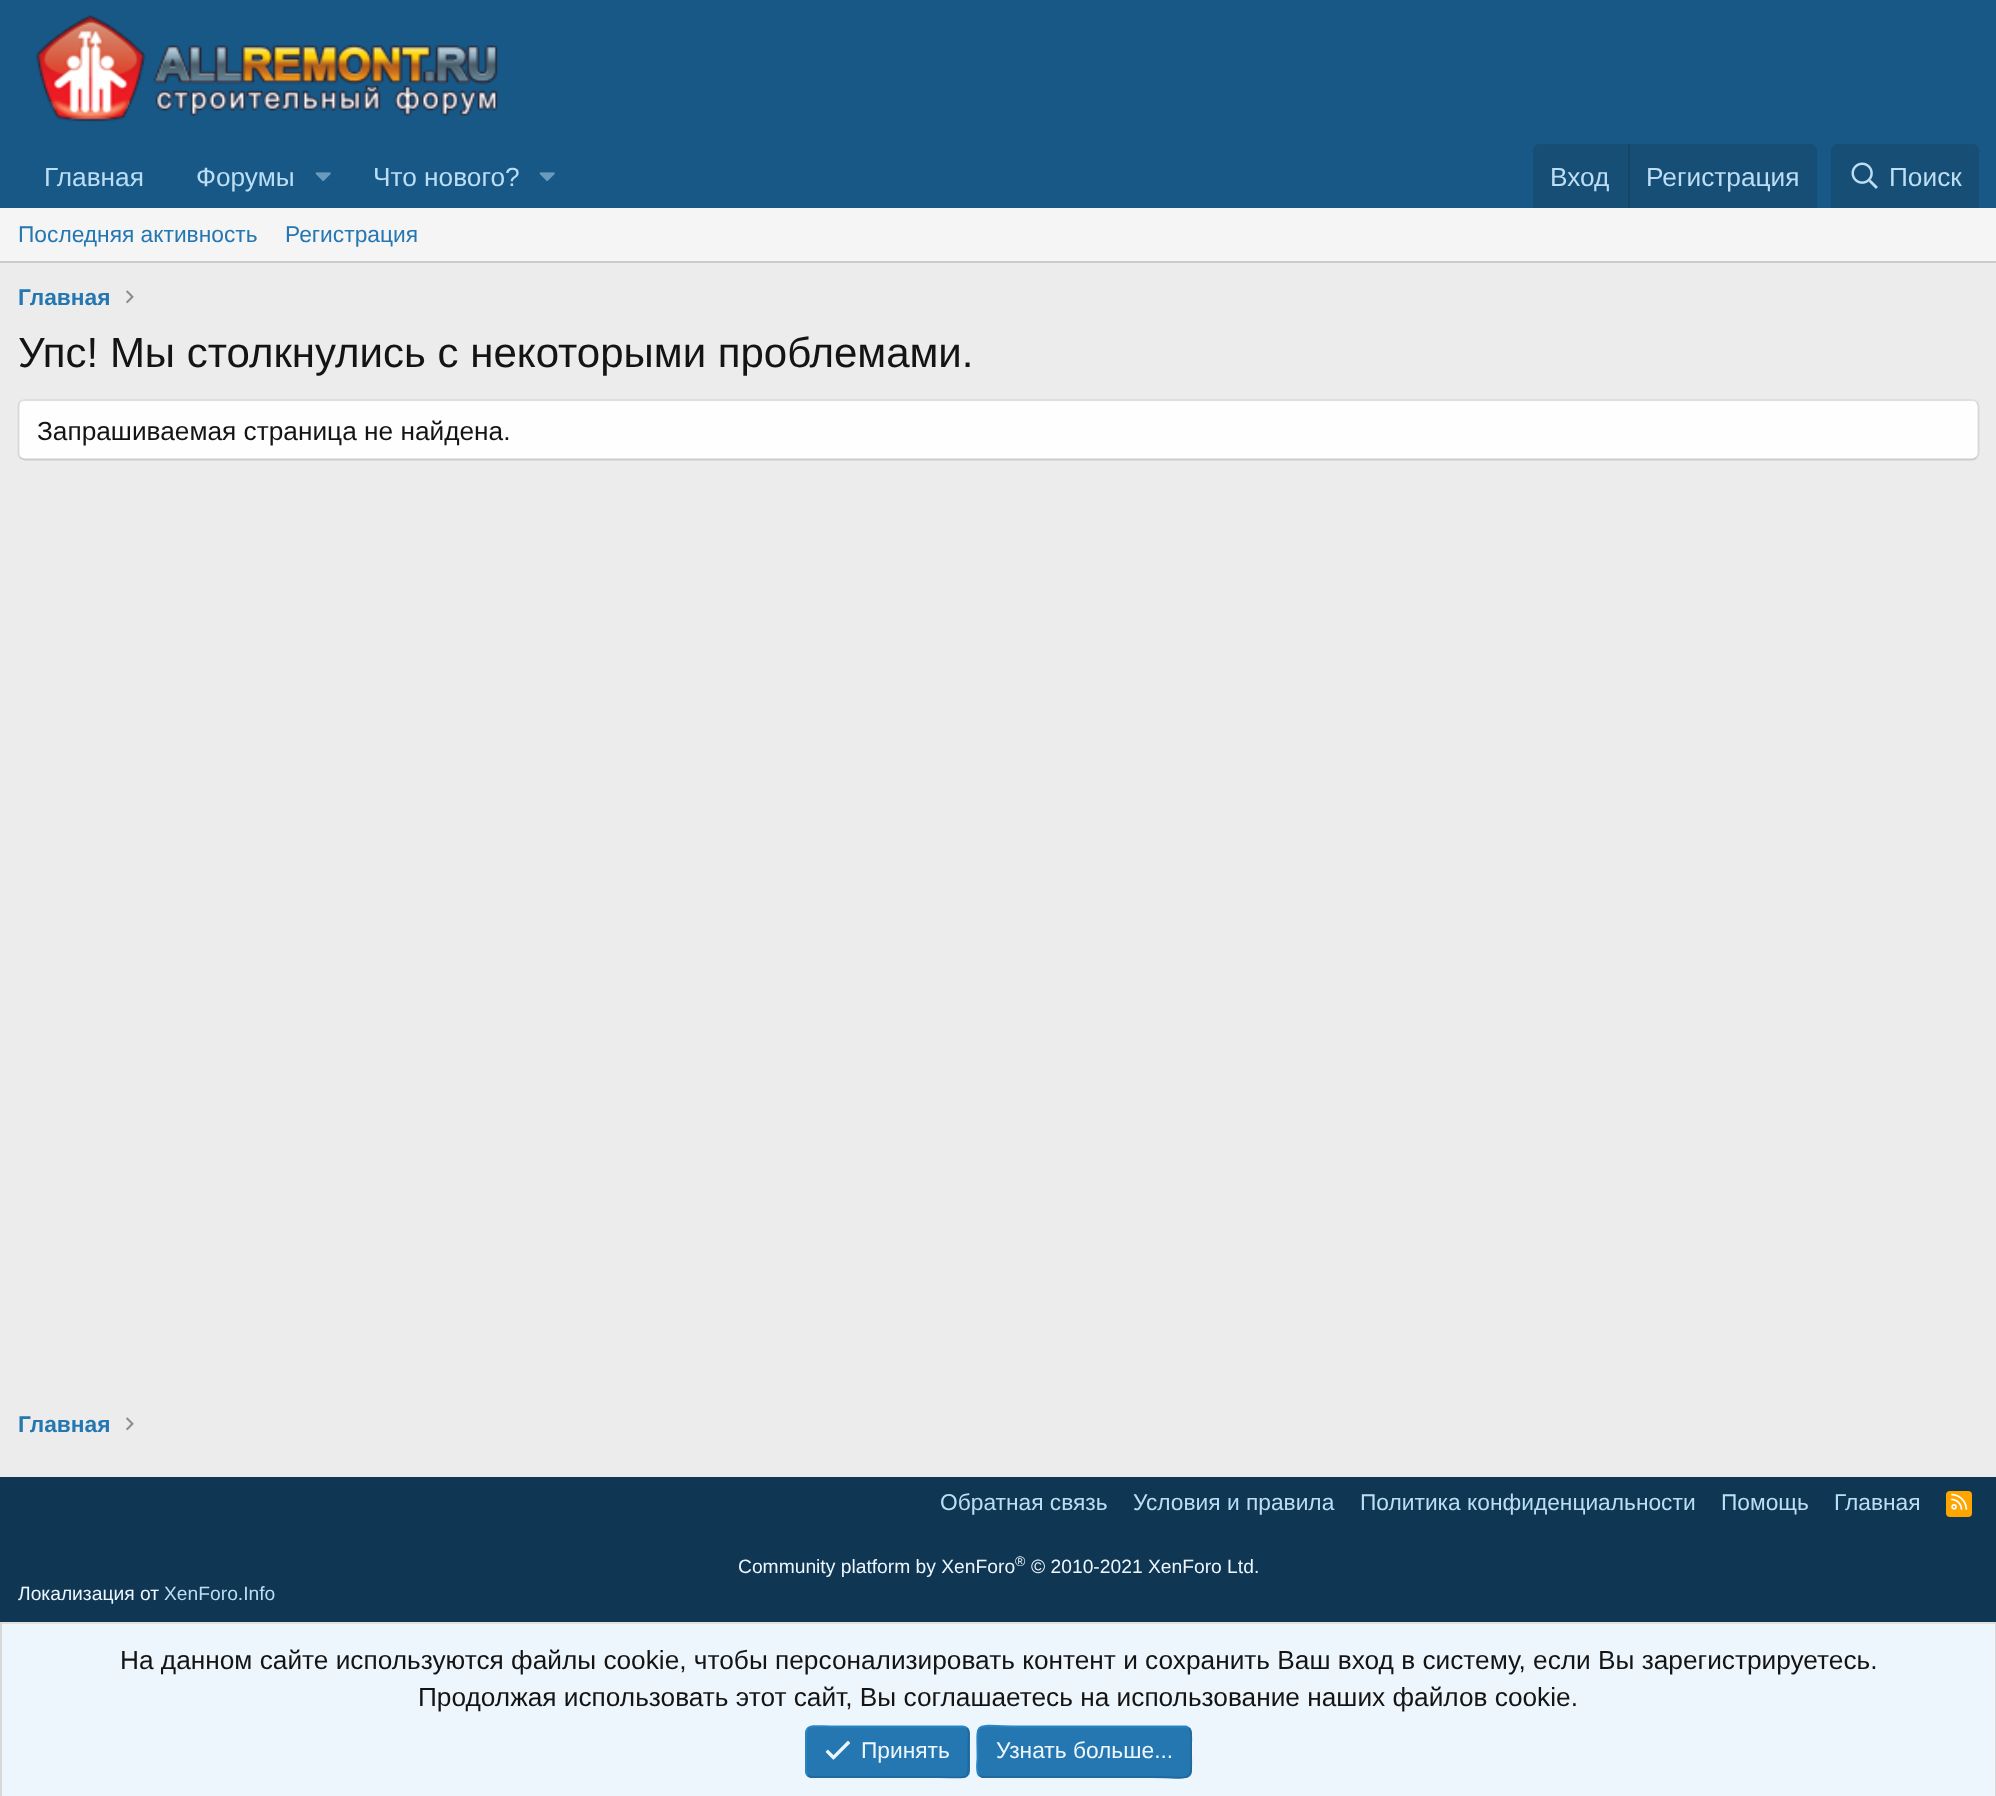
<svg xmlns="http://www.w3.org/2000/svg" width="1996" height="1796">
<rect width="100%" height="100%" fill="#ececec"/>
<rect width="1996" height="208" fill="#185886"/>
<image x="36" y="15" width="462" height="107" href="media/1.png"/>
<text x="44" y="186" style="font-family:Liberation Sans;font-size:26.25px;fill:#bcdef5">Главная</text>
<text x="196" y="186" style="font-family:Liberation Sans;font-size:26.25px;fill:#bcdef5">Форумы</text>
<image x="315" y="172" width="16" height="9" href="media/2.png"/>
<text x="373" y="186" style="font-family:Liberation Sans;font-size:26.25px;fill:#bcdef5">Что нового?</text>
<image x="539" y="172" width="16" height="9" href="media/2.png"/>
<path d="M1540 144h270c4 0 7 3 7 7v57h-284v-57c0-4 3-7 7-7z" fill="#174e75"/>
<text x="1550" y="186" style="font-family:Liberation Sans;font-size:26.25px;fill:#bcdef5">Вход</text>
<rect x="1628" y="144" width="2" height="64" fill="#174566"/>
<text x="1646" y="186" style="font-family:Liberation Sans;font-size:26.25px;fill:#bcdef5">Регистрация</text>
<path d="M1838 144h134c4 0 7 3 7 7v57h-148v-57c0-4 3-7 7-7z" fill="#174e75"/>
<image x="1851" y="162" width="27" height="27" href="media/3.png"/>
<text x="1889" y="186" style="font-family:Liberation Sans;font-size:26.25px;fill:#bcdef5">Поиск</text>
<rect y="208" width="1996" height="53" fill="#f5f5f5"/>
<rect y="261" width="1996" height="2" fill="#cbcbcb"/>
<text x="18" y="242" style="font-family:Liberation Sans;font-size:22.75px;fill:#2577b1">Последняя активность</text>
<text x="285" y="242" style="font-family:Liberation Sans;font-size:22.75px;fill:#2577b1">Регистрация</text>
<text x="18" y="305" style="font-family:Liberation Sans;font-size:22.75px;font-weight:bold;fill:#2577b1">Главная</text>
<image x="126" y="290" width="8" height="14" href="media/4.png"/>
<text x="18" y="367" style="font-family:Liberation Sans;font-size:42px;fill:#141414">Упс! Мы столкнулись с некоторыми проблемами.</text>
<rect x="18" y="399" width="1961" height="61" rx="7" fill="#fefefe"/>
<path d="M20 401.5c1.5-1 3-1.5 4.5-1.5h1947.5c2 0 3.5 .5 4.5 1.5" fill="none" stroke="#dfdfdf" stroke-width="1.8"/>
<path d="M1976.5 401.5c1 1.5 2 3 2 4.5v47c0 2-1 3.5-2 4.5" fill="none" stroke="#d8d8d8" stroke-width="1.8"/>
<path d="M1976.5 457.5c-1 1-2.5 2-4.5 2h-1947.5c-1.5 0-3-1-4.5-2" fill="none" stroke="#cbcbcb" stroke-width="1.8"/>
<path d="M20 457.5c-1-1-1.5-2.5-1.5-4.5v-47c0-1.5 .5-3 1.5-4.5" fill="none" stroke="#d8d8d8" stroke-width="1.8"/>
<text x="37" y="440" style="font-family:Liberation Sans;font-size:26.25px;fill:#141414">Запрашиваемая страница не найдена.</text>
<text x="18" y="1432" style="font-family:Liberation Sans;font-size:22.75px;font-weight:bold;fill:#2577b1">Главная</text>
<image x="126" y="1417" width="8" height="14" href="media/4.png"/>
<rect y="1477" width="1996" height="145" fill="#0f3652"/>
<text x="940" y="1510" style="font-family:Liberation Sans;font-size:22.75px;fill:#bcdef5">Обратная связь</text>
<text x="1133" y="1510" style="font-family:Liberation Sans;font-size:22.75px;fill:#bcdef5">Условия и правила</text>
<text x="1360" y="1510" style="font-family:Liberation Sans;font-size:22.75px;fill:#bcdef5">Политика конфиденциальности</text>
<text x="1721" y="1510" style="font-family:Liberation Sans;font-size:22.75px;fill:#bcdef5">Помощь</text>
<text x="1834" y="1510" style="font-family:Liberation Sans;font-size:22.75px;fill:#bcdef5">Главная</text>
<rect x="1946" y="1491" width="26" height="26" rx="4" fill="#ffa500"/>
<image x="1951" y="1493" width="17" height="17" href="media/5.png"/>
<text x="738" y="1573" style="font-family:Liberation Sans;font-size:19.25px;fill:#edf6fd">Community platform by XenForo</text>
<text x="1015" y="1566" style="font-family:Liberation Sans;font-size:14px;fill:#edf6fd">®</text>
<text x="1031" y="1573" style="font-family:Liberation Sans;font-size:19.25px;fill:#edf6fd">© 2010-2021 XenForo Ltd.</text>
<text x="18" y="1600" style="font-family:Liberation Sans;font-size:19.25px;fill:#edf6fd">Локализация от</text>
<text x="164" y="1600" style="font-family:Liberation Sans;font-size:19.25px;fill:#bcdef5">XenForo.Info</text>
<rect x="2" y="1624" width="1993" height="172" fill="#edf6fd"/>
<rect y="1622" width="1996" height="2" fill="#dfdfdf"/>
<rect x="1995" y="1622" width="1" height="174" fill="#d8d8d8"/>
<rect y="1622" width="2" height="174" fill="#d8d8d8"/>
<text x="120" y="1669" style="font-family:Liberation Sans;font-size:26.25px;fill:#141414">На данном сайте используются файлы cookie, чтобы персонализировать контент и сохранить Ваш вход в систему, если Вы зарегистрируетесь.</text>
<text x="418" y="1706" style="font-family:Liberation Sans;font-size:26.25px;fill:#141414">Продолжая использовать этот сайт, Вы соглашаетесь на использование наших файлов cookie.</text>
<rect x="805" y="1726" width="165" height="52" rx="7" fill="#2577b1"/>
<path d="M967 1728c2.5 3 1.5 7.5 1.5 11v13c0 31 3.5 25-31 25h-125.5c-1.5 0-3-.5-4.5-1.5" fill="none" stroke="#21699c" stroke-width="1.8"/>
<path d="M807.5 1775.5c-2.5-3-1.5-7.5-1.5-11v-12.5c0-31.5-3.5-25.5 31-25.5h125.5c1.5 0 3 .5 4.5 1.5" fill="none" stroke="#2985c6" stroke-width="1.8"/>
<image x="825" y="1740" width="26" height="20" href="media/6.png"/>
<text x="861" y="1758" style="font-family:Liberation Sans;font-size:22.75px;fill:#edf6fd">Принять</text>
<rect x="977" y="1726" width="215" height="52" rx="7" fill="#2577b1"/>
<path d="M1189 1728c3.5 3.5 2 13.5 2 17.5c0 40 5.5 31.5-40 31.5h-168.5l-3.5-1.5" fill="none" stroke="#21699c" stroke-width="1.8"/>
<path d="M979 1775.5c-3.5-3.5-1.5-13.5-1.5-17.5c0-40-6-31.5 39.5-31.5h169l3 1.5" fill="none" stroke="#2985c6" stroke-width="1.8"/>
<text x="996" y="1758" style="font-family:Liberation Sans;font-size:22.75px;fill:#edf6fd">Узнать больше...</text>
</svg>
